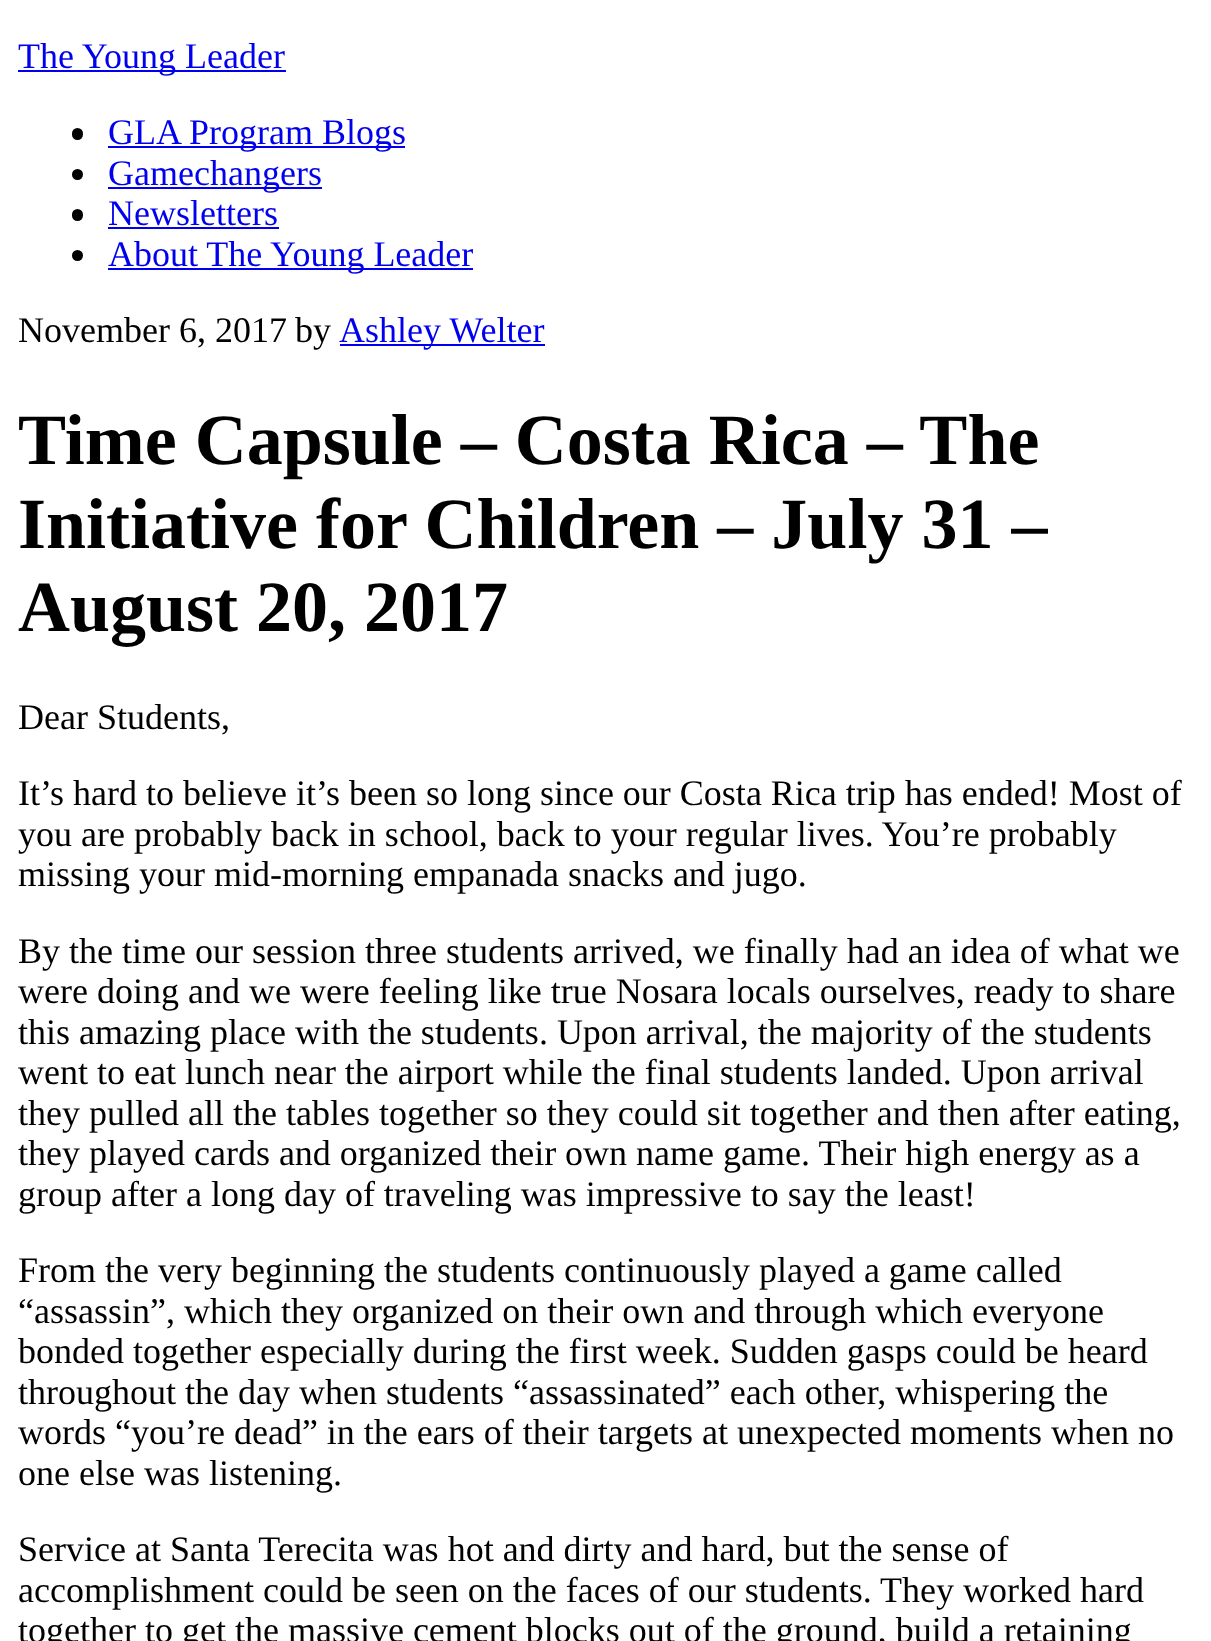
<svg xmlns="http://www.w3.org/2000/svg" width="1211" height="1641">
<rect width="100%" height="100%" fill="#fff"/>
<rect x="18" y="70" width="268" height="2" fill="#00e"/>
<text x="18" y="68" style="font-family:Liberation Serif;font-size:36px;fill:#00e">The Young Leader</text>
<rect x="72" y="128" width="11" height="12" rx="5.5" fill="#000"/>
<rect x="108" y="146" width="297" height="2" fill="#00e"/>
<text x="108" y="144" style="font-family:Liberation Serif;font-size:36px;fill:#00e">GLA Program Blogs</text>
<circle cx="77.5" cy="174.5" r="5.5" fill="#000"/>
<rect x="108" y="187" width="214" height="2" fill="#00e"/>
<text x="108" y="185" style="font-family:Liberation Serif;font-size:36px;fill:#00e">Gamechangers</text>
<rect x="72" y="209" width="11" height="12" rx="5.5" fill="#000"/>
<text x="108" y="225" style="font-family:Liberation Serif;font-size:36px;fill:#00e">Newsletters</text>
<rect x="108" y="227" width="171" height="2" fill="#00e"/>
<circle cx="77.5" cy="255.5" r="5.5" fill="#000"/>
<rect x="108" y="268" width="365" height="2" fill="#00e"/>
<text x="108" y="266" style="font-family:Liberation Serif;font-size:36px;fill:#00e">About The Young Leader</text>
<text x="18" y="342" style="font-family:Liberation Serif;font-size:36px;fill:#000">November 6, 2017</text>
<text x="295" y="342" style="font-family:Liberation Serif;font-size:36px;fill:#000">by</text>
<rect x="340" y="344" width="205" height="2" fill="#00e"/>
<text x="339" y="342" style="font-family:Liberation Serif;font-size:36px;fill:#00e">Ashley Welter</text>
<text x="18" y="464" style="font-family:Liberation Serif;font-size:72px;font-weight:bold;fill:#000">Time Capsule – Costa Rica – The</text>
<text x="18" y="548" style="font-family:Liberation Serif;font-size:72px;font-weight:bold;fill:#000">Initiative for Children – July 31 –</text>
<text x="18" y="631" style="font-family:Liberation Serif;font-size:72px;font-weight:bold;fill:#000">August 20, 2017</text>
<text x="18" y="729" style="font-family:Liberation Serif;font-size:36px;fill:#000">Dear Students,</text>
<text x="18" y="805" style="font-family:Liberation Serif;font-size:36px;fill:#000">It’s hard to believe it’s been so long since our Costa Rica trip has ended! Most of</text>
<text x="18" y="846" style="font-family:Liberation Serif;font-size:36px;fill:#000">you are probably back in school, back to your regular lives. You’re probably</text>
<text x="18" y="886" style="font-family:Liberation Serif;font-size:36px;fill:#000">missing your mid-morning empanada snacks and jugo.</text>
<text x="18" y="963" style="font-family:Liberation Serif;font-size:36px;fill:#000">By the time our session three students arrived, we finally had an idea of what we</text>
<text x="18" y="1003" style="font-family:Liberation Serif;font-size:36px;fill:#000">were doing and we were feeling like true Nosara locals ourselves, ready to share</text>
<text x="18" y="1044" style="font-family:Liberation Serif;font-size:36px;fill:#000">this amazing place with the students. Upon arrival, the majority of the students</text>
<text x="18" y="1084" style="font-family:Liberation Serif;font-size:36px;fill:#000">went to eat lunch near the airport while the final students landed. Upon arrival</text>
<text x="18" y="1125" style="font-family:Liberation Serif;font-size:36px;fill:#000">they pulled all the tables together so they could sit together and then after eating,</text>
<text x="18" y="1165" style="font-family:Liberation Serif;font-size:36px;fill:#000">they played cards and organized their own name game. Their high energy as a</text>
<text x="18" y="1206" style="font-family:Liberation Serif;font-size:36px;fill:#000">group after a long day of traveling was impressive to say the least!</text>
<text x="18" y="1282" style="font-family:Liberation Serif;font-size:36px;fill:#000">From the very beginning the students continuously played a game called</text>
<text x="18" y="1323" style="font-family:Liberation Serif;font-size:36px;fill:#000">“assassin”, which they organized on their own and through which everyone</text>
<text x="18" y="1363" style="font-family:Liberation Serif;font-size:36px;fill:#000">bonded together especially during the first week. Sudden gasps could be heard</text>
<text x="18" y="1404" style="font-family:Liberation Serif;font-size:36px;fill:#000">throughout the day when students “assassinated” each other, whispering the</text>
<text x="18" y="1444" style="font-family:Liberation Serif;font-size:36px;fill:#000">words “you’re dead” in the ears of their targets at unexpected moments when no</text>
<text x="18" y="1485" style="font-family:Liberation Serif;font-size:36px;fill:#000">one else was listening.</text>
<text x="18" y="1561" style="font-family:Liberation Serif;font-size:36px;fill:#000">Service at Santa Terecita was hot and dirty and hard, but the sense of</text>
<text x="18" y="1602" style="font-family:Liberation Serif;font-size:36px;fill:#000">accomplishment could be seen on the faces of our students. They worked hard</text>
<text x="18" y="1642" style="font-family:Liberation Serif;font-size:36px;fill:#000">together to get the massive cement blocks out of the ground, build a retaining</text>
</svg>
